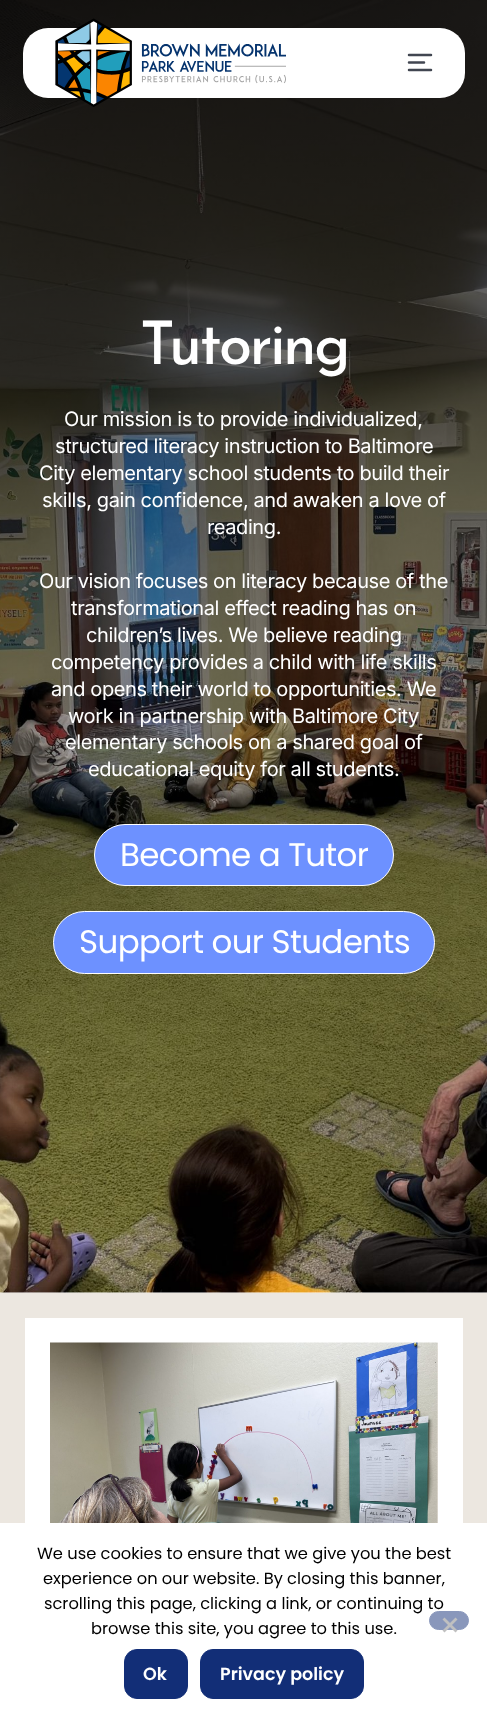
<svg xmlns="http://www.w3.org/2000/svg" width="487" height="1723">
<defs>
<linearGradient id="g1" gradientUnits="userSpaceOnUse" x1="244" y1="0" x2="244" y2="1293"><stop offset="0" stop-color="#000" stop-opacity="0.8"/><stop offset="1" stop-color="#000" stop-opacity="0"/></linearGradient>
</defs>
<rect width="100%" height="100%" fill="#fff"/>
<image x="0" y="0" width="487" height="1293" href="media/2.png"/>
<rect width="487" height="1258" fill="url(#g1)"/>
<rect x="23" y="28" width="442" height="70" rx="25" fill="#fff"/>
<image x="55" y="18" width="231" height="89" href="media/1.png"/>
<path d="M409 62.5h15m-15-7.5h22m-22 15h22" fill="none" stroke="#414651" stroke-width="2.5" stroke-linecap="round" stroke-linejoin="round"/>
<text x="140" y="364" style="font-family:Josefin Sans;font-size:60px;font-weight:500;letter-spacing:-2.5px;fill:#fff">Tutoring</text>
<text x="64" y="426" style="font-family:Inter;font-size:20px;letter-spacing:-0.4px;fill:#fff">Our mission is to provide individualized,</text>
<text x="55" y="453" style="font-family:Inter;font-size:20px;letter-spacing:-0.4px;fill:#fff">structured literacy instruction to Baltimore</text>
<text x="39" y="480" style="font-family:Inter;font-size:20px;letter-spacing:-0.4px;fill:#fff">City elementary school students to build their</text>
<text x="42" y="507" style="font-family:Inter;font-size:20px;letter-spacing:-0.4px;fill:#fff">skills, gain confidence, and awaken a love of</text>
<text x="207" y="534" style="font-family:Inter;font-size:20px;letter-spacing:-0.4px;fill:#fff">reading.</text>
<text x="39" y="588" style="font-family:Inter;font-size:20px;letter-spacing:-0.4px;fill:#fff">Our vision focuses on literacy because of the</text>
<text x="71" y="615" style="font-family:Inter;font-size:20px;letter-spacing:-0.4px;fill:#fff">transformational effect reading has on</text>
<text x="86" y="642" style="font-family:Inter;font-size:20px;letter-spacing:-0.4px;fill:#fff">children’s lives. We believe reading</text>
<text x="51" y="669" style="font-family:Inter;font-size:20px;letter-spacing:-0.4px;fill:#fff">competency provides a child with life skills</text>
<text x="51" y="696" style="font-family:Inter;font-size:20px;letter-spacing:-0.4px;fill:#fff">and opens their world to opportunities. We</text>
<text x="68" y="723" style="font-family:Inter;font-size:20px;letter-spacing:-0.4px;fill:#fff">work in partnership with Baltimore City</text>
<text x="65" y="749" style="font-family:Inter;font-size:20px;letter-spacing:-0.4px;fill:#fff">elementary schools on a shared goal of</text>
<text x="88" y="776" style="font-family:Inter;font-size:20px;letter-spacing:-0.4px;fill:#fff">educational equity for all students.</text>
<rect x="94.5" y="824.5" width="299" height="61" rx="30.5" fill="#6d91ff" stroke="#fff"/>
<text x="120" y="866" style="font-family:Poppins;font-size:32.5px;letter-spacing:-0.6px;fill:#fff">Become a Tutor</text>
<rect x="53.5" y="911.5" width="381" height="62" rx="31" fill="#6d91ff" stroke="#fff"/>
<text x="79" y="953" style="font-family:Poppins;font-size:32.5px;letter-spacing:-0.6px;fill:#fff">Support our Students</text>
<rect y="1293" width="487" height="230" fill="#ece7e0"/>
<rect x="37.5" y="1330.5" width="413" height="316" fill="none" stroke="#fff" stroke-width="25"/>
<image x="50" y="1342" width="388" height="181" href="media/3.png"/>
<text x="37" y="1559" style="font-family:Poppins;font-size:16.25px;fill:#000">We use cookies to ensure that we give you the best</text>
<text x="43" y="1584" style="font-family:Poppins;font-size:16.25px;fill:#000">experience on our website. By closing this banner,</text>
<text x="44" y="1609" style="font-family:Poppins;font-size:16.25px;fill:#000">scrolling this page, clicking a link, or continuing to</text>
<text x="91" y="1634" style="font-family:Poppins;font-size:16.25px;fill:#000">browse this site, you agree to this use.</text>
<rect x="429.5" y="1611.5" width="39" height="18" rx="9" fill="#8997bb" stroke="#8997bb"/>
<path d="M455.5 1617.5l2 2l-13 13l-2-2z" fill="#c0c0c0"/>
<path d="M442.5 1619.5l2-2l13 13l-2 2z" fill="#c0c0c0"/>
<rect x="124.5" y="1649.5" width="63" height="49" rx="12.5" fill="#122e77" stroke="#122e77"/>
<text x="143" y="1680" style="font-family:Poppins;font-size:17.5px;font-weight:600;fill:#fff">Ok</text>
<rect x="200.5" y="1649.5" width="163" height="49" rx="12.5" fill="#122e77" stroke="#122e77"/>
<text x="220" y="1680" style="font-family:Poppins;font-size:17.5px;font-weight:600;fill:#fff">Privacy policy</text>
</svg>
